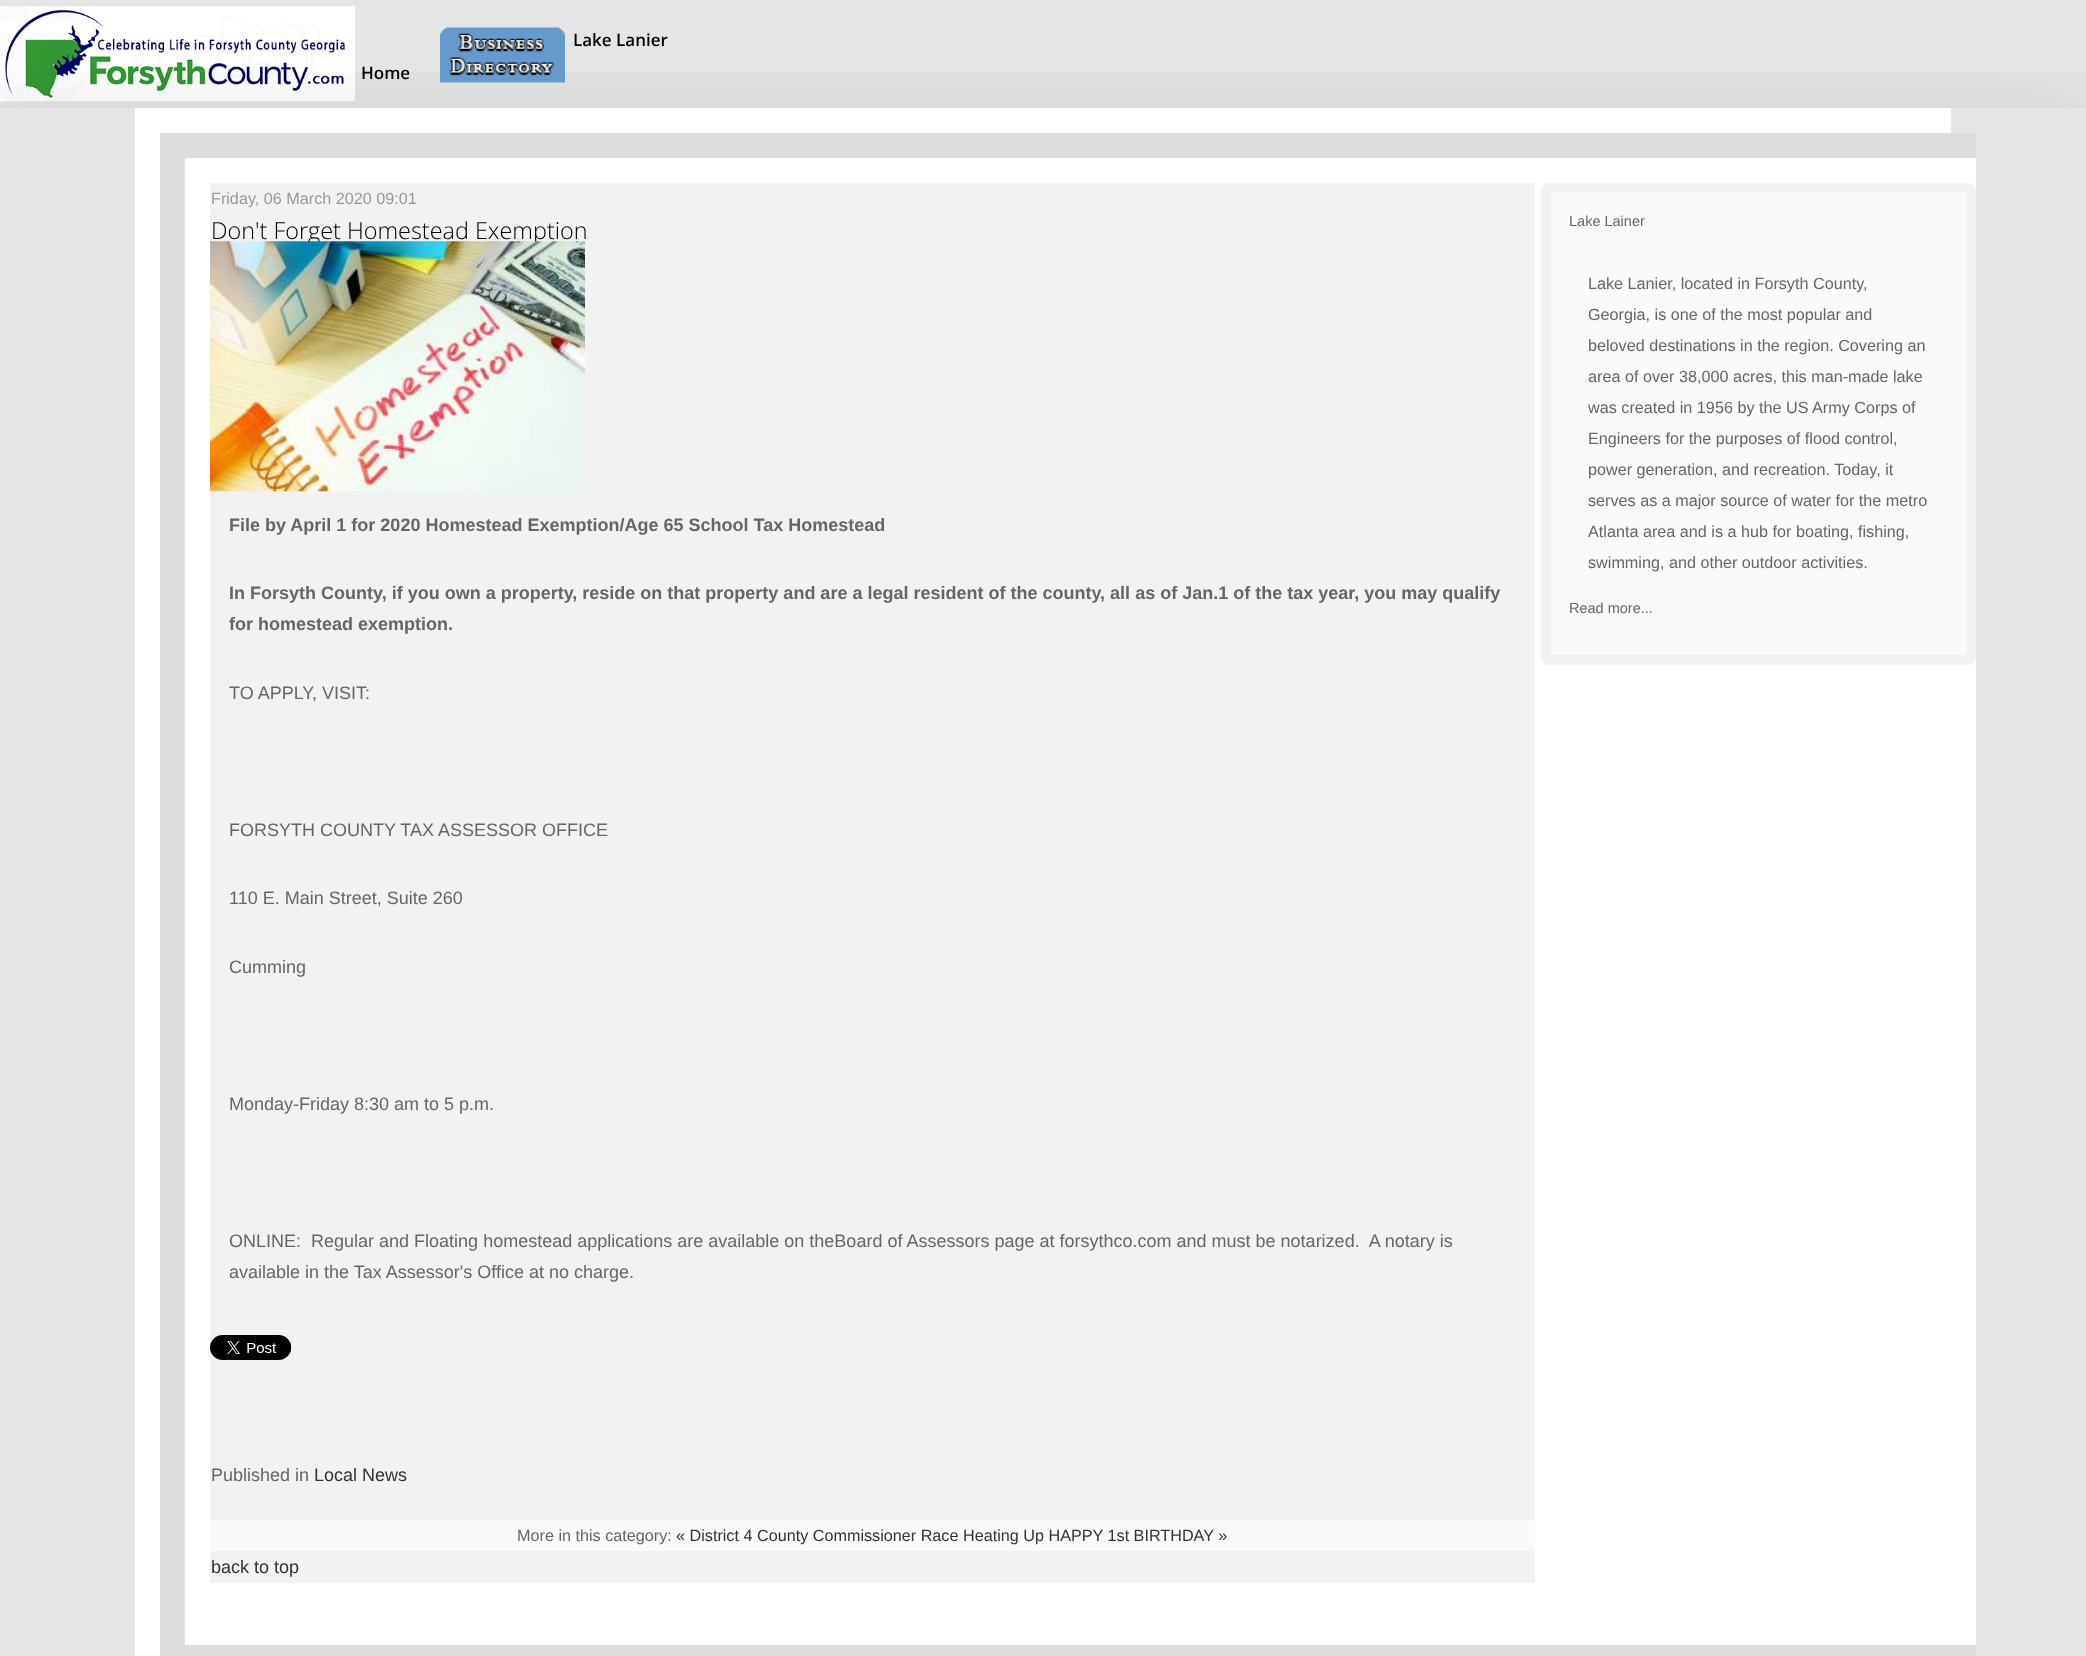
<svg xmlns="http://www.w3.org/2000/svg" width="2086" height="1656">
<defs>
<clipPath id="clip1"><rect x="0" y="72" width="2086" height="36"/></clipPath>
</defs>
<rect width="100%" height="100%" fill="#e5e5e5"/>
<image x="0" y="6" width="355" height="96" href="media/1.png"/>
<g clip-path="url(#clip1)">
<rect y="108" width="2086" height="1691" fill="#00000017" filter="blur(47.5px)"/>
</g>
<image x="440" y="27" width="125" height="56" href="media/2.png"/>
<text x="573" y="46" style="font-family:Open Sans;font-size:17px;font-weight:600;fill:#000">Lake Lanier</text>
<text x="361" y="79" style="font-family:Open Sans;font-size:17px;font-weight:600;fill:#000">Home</text>
<rect x="135" y="108" width="1816" height="1548" fill="#fff"/>
<rect x="160" y="133" width="1816" height="1523" fill="#ddd"/>
<rect x="185" y="158" width="1791" height="1487" fill="#fff"/>
<rect x="210" y="183" width="1325" height="1400" fill="#f2f2f2"/>
<text x="211" y="204" style="font-family:Liberation Sans;font-size:16.2px;fill:#999">Friday, 06 March 2020 09:01</text>
<text x="211" y="239" style="font-family:Open Sans;font-size:23.4px;font-weight:300;fill:#000">Don't Forget Homestead Exemption</text>
<image x="210" y="241" width="375" height="251" href="media/3.png"/>
<text x="229" y="531" style="font-family:Liberation Sans;font-size:18px;font-weight:bold;fill:#666">File by April 1 for 2020 Homestead Exemption/Age 65 School Tax Homestead</text>
<text x="229" y="599" style="font-family:Liberation Sans;font-size:18px;font-weight:bold;fill:#666">In Forsyth County, if you own a property, reside on that property and are a legal resident of the county, all as of Jan.1 of the tax year, you may qualify</text>
<text x="229" y="630" style="font-family:Liberation Sans;font-size:18px;font-weight:bold;fill:#666">for homestead exemption.</text>
<text x="229" y="699" style="font-family:Liberation Sans;font-size:18px;fill:#666">TO APPLY, VISIT:</text>
<text x="229" y="836" style="font-family:Liberation Sans;font-size:18px;fill:#666">FORSYTH COUNTY TAX ASSESSOR OFFICE</text>
<text x="229" y="904" style="font-family:Liberation Sans;font-size:18px;fill:#666">110 E. Main Street, Suite 260</text>
<text x="229" y="973" style="font-family:Liberation Sans;font-size:18px;fill:#666">Cumming</text>
<text x="229" y="1110" style="font-family:Liberation Sans;font-size:18px;fill:#666">Monday-Friday 8:30 am to 5 p.m.</text>
<text x="229" y="1247" style="font-family:Liberation Sans;font-size:18px;fill:#666" xml:space="preserve">ONLINE:  Regular and Floating homestead applications are available on theBoard of Assessors page at forsythco.com and must be notarized.  A notary is</text>
<text x="229" y="1278" style="font-family:Liberation Sans;font-size:18px;fill:#666">available in the Tax Assessor's Office at no charge.</text>
<image x="210" y="1335" width="82" height="25" href="media/4.png"/>
<text x="211" y="1481" style="font-family:Liberation Sans;font-size:18px;fill:#666">Published in</text>
<text x="314" y="1481" style="font-family:Liberation Sans;font-size:18px;fill:#333">Local News</text>
<rect x="210" y="1520" width="1325" height="31" fill="#fafafa"/>
<text x="517" y="1541" style="font-family:Liberation Sans;font-size:16.2px;fill:#666">More in this category:</text>
<text x="676" y="1541" style="font-family:Liberation Sans;font-size:16.2px;fill:#333">« District 4 County Commissioner Race Heating Up HAPPY 1st BIRTHDAY »</text>
<text x="211" y="1573" style="font-family:Liberation Sans;font-size:18px;fill:#333">back to top</text>
<rect x="1541" y="183" width="435" height="482" rx="8" fill="#f2f2f2"/>
<rect x="1551" y="192" width="416" height="463" fill="#fafafa"/>
<text x="1569" y="226" style="font-family:Liberation Sans;font-size:14.5px;fill:#666">Lake Lainer</text>
<text x="1588" y="289" style="font-family:Liberation Sans;font-size:16.2px;fill:#666">Lake Lanier, located in Forsyth County,</text>
<text x="1588" y="320" style="font-family:Liberation Sans;font-size:16.2px;fill:#666">Georgia, is one of the most popular and</text>
<text x="1588" y="351" style="font-family:Liberation Sans;font-size:16.2px;fill:#666">beloved destinations in the region. Covering an</text>
<text x="1588" y="382" style="font-family:Liberation Sans;font-size:16.2px;fill:#666">area of over 38,000 acres, this man-made lake</text>
<text x="1588" y="413" style="font-family:Liberation Sans;font-size:16.2px;fill:#666">was created in 1956 by the US Army Corps of</text>
<text x="1588" y="444" style="font-family:Liberation Sans;font-size:16.2px;fill:#666">Engineers for the purposes of flood control,</text>
<text x="1588" y="475" style="font-family:Liberation Sans;font-size:16.2px;fill:#666">power generation, and recreation. Today, it</text>
<text x="1588" y="506" style="font-family:Liberation Sans;font-size:16.2px;fill:#666">serves as a major source of water for the metro</text>
<text x="1588" y="537" style="font-family:Liberation Sans;font-size:16.2px;fill:#666">Atlanta area and is a hub for boating, fishing,</text>
<text x="1588" y="568" style="font-family:Liberation Sans;font-size:16.2px;fill:#666">swimming, and other outdoor activities.</text>
<text x="1569" y="613" style="font-family:Liberation Sans;font-size:14.5px;fill:#666">Read more...</text>
</svg>
